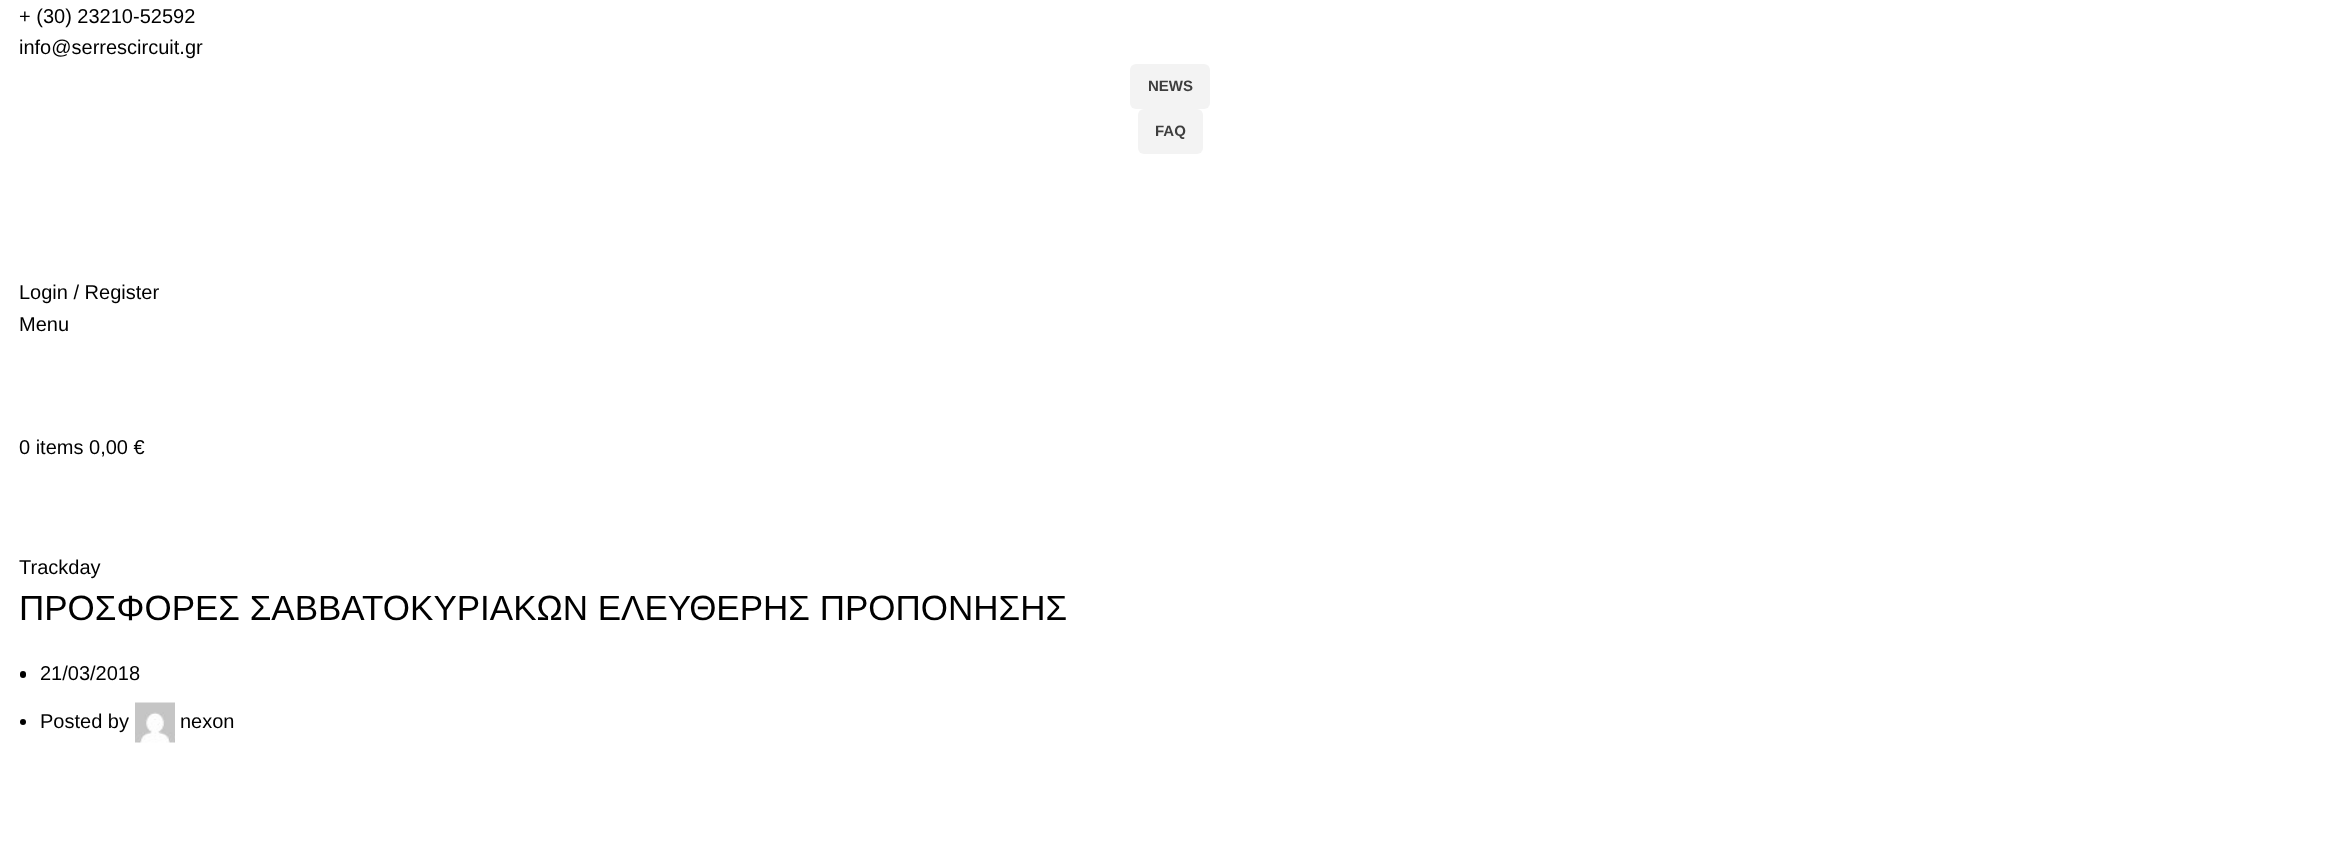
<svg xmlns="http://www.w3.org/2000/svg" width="2339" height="853">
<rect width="100%" height="100%" fill="#fff"/>
<text x="19" y="23" style="font-family:Liberation Sans;font-size:20px;fill:#000">+ (30) 23210-52592</text>
<text x="19" y="54" style="font-family:Liberation Sans;font-size:20px;fill:#000">info@serrescircuit.gr</text>
<rect x="1130" y="64" width="80" height="45" rx="6" fill="#f3f3f3"/>
<text x="1148" y="91" style="font-family:Liberation Sans;font-size:15px;font-weight:bold;fill:#3e3e3e">NEWS</text>
<rect x="1138" y="109" width="65" height="45" rx="6" fill="#f3f3f3"/>
<text x="1155" y="136" style="font-family:Liberation Sans;font-size:15px;font-weight:bold;fill:#3e3e3e">FAQ</text>
<text x="19" y="299" style="font-family:Liberation Sans;font-size:20px;fill:#000">Login / Register</text>
<text x="19" y="331" style="font-family:Liberation Sans;font-size:20px;fill:#000">Menu</text>
<text x="19" y="454" style="font-family:Liberation Sans;font-size:20px;fill:#000">0 items 0,00 €</text>
<text x="19" y="574" style="font-family:Liberation Sans;font-size:20px;fill:#000">Trackday</text>
<text x="19" y="620" style="font-family:Liberation Sans;font-size:35px;fill:#000">ΠΡΟΣΦΟΡΕΣ ΣΑΒΒΑΤΟΚΥΡΙΑΚΩΝ ΕΛΕΥΘΕΡΗΣ ΠΡΟΠΟΝΗΣΗΣ</text>
<rect x="20" y="671" width="6" height="7" rx="3" fill="#000"/>
<text x="40" y="680" style="font-family:Liberation Sans;font-size:20px;fill:#000">21/03/2018</text>
<circle cx="23" cy="722" r="3" fill="#000"/>
<text x="40" y="728" style="font-family:Liberation Sans;font-size:20px;fill:#000">Posted by</text>
<image x="135" y="702" width="40" height="41" href="media/1.png"/>
<text x="180" y="728" style="font-family:Liberation Sans;font-size:20px;fill:#000">nexon</text>
</svg>
